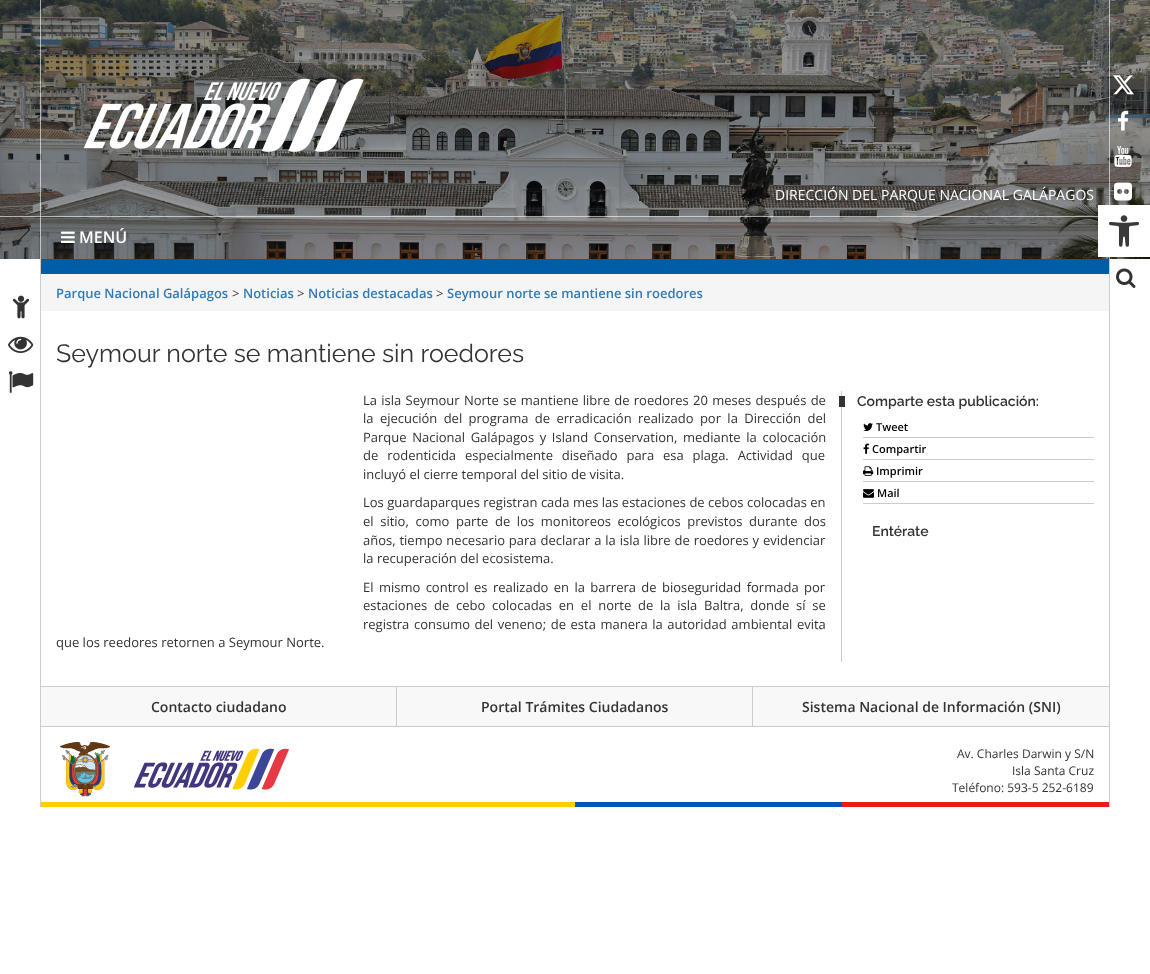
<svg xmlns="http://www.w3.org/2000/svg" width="1150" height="974">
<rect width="100%" height="100%" fill="#fff"/>
<image x="0" y="0" width="1150" height="259" href="media/1.png"/>
<rect x="1109" width="1" height="259" fill="#ffffff99"/>
<rect x="40" width="1" height="259" fill="#ffffff99"/>
<image x="83" y="78" width="281" height="74" href="media/2.png"/>
<image x="1113" y="75" width="21" height="20" href="media/3.png"/>
<image x="1118" y="111" width="11" height="20" href="media/4.png"/>
<image x="1114" y="146" width="18" height="21" href="media/5.png"/>
<image x="1114" y="182" width="18" height="19" href="media/6.png"/>
<text x="775" y="200" style="font-family:Open Sans;font-size:14px;fill:#fff">DIRECCIÓN DEL PARQUE NACIONAL GALÁPAGOS</text>
<rect y="216" width="1098" height="1" fill="#ffffff99"/>
<image x="61" y="231" width="14" height="12" href="media/7.png"/>
<text x="79" y="243" style="font-family:Open Sans;font-size:16px;font-weight:600;fill:#fff">MENÚ</text>
<image x="1116" y="268" width="20" height="20" href="media/8.png"/>
<image x="12" y="295" width="18" height="24" href="media/9.png"/>
<image x="8" y="336" width="26" height="17" href="media/10.png"/>
<image x="8" y="371" width="26" height="22" href="media/11.png"/>
<rect x="41" y="259" width="1068" height="15" fill="#005da6"/>
<rect x="41" y="274" width="1068" height="37" fill="#f5f5f5"/>
<text x="56" y="298" style="font-family:Open Sans;font-size:13px;font-weight:600;fill:#337ab7">Parque Nacional Galápagos</text>
<text x="232" y="298" style="font-family:Open Sans;font-size:13px;fill:#333">&gt;</text>
<text x="243" y="298" style="font-family:Open Sans;font-size:13px;font-weight:600;fill:#337ab7">Noticias</text>
<text x="297" y="298" style="font-family:Open Sans;font-size:13px;fill:#333">&gt;</text>
<text x="308" y="298" style="font-family:Open Sans;font-size:13px;font-weight:600;fill:#337ab7">Noticias destacadas</text>
<text x="436" y="298" style="font-family:Open Sans;font-size:13px;fill:#333">&gt;</text>
<text x="447" y="298" style="font-family:Open Sans;font-size:13px;font-weight:600;fill:#337ab7">Seymour norte se mantiene sin roedores</text>
<text x="56" y="362" style="font-family:Raleway;font-size:25px;font-weight:100;fill:#333">Seymour norte se mantiene sin roedores</text>
<rect x="841" y="391" width="1" height="271" fill="#ccc"/>
<text x="363" y="405" word-spacing="0.9" style="font-family:Open Sans;font-size:13px;fill:#333">La isla Seymour Norte se mantiene libre de roedores 20 meses después de</text>
<text x="363" y="423" word-spacing="3" style="font-family:Open Sans;font-size:13px;fill:#333">la ejecución del programa de erradicación realizado por la Dirección del</text>
<text x="363" y="442" word-spacing="2.25" style="font-family:Open Sans;font-size:13px;fill:#333">Parque Nacional Galápagos y Island Conservation, mediante la colocación</text>
<text x="363" y="460" word-spacing="5.5" style="font-family:Open Sans;font-size:13px;fill:#333">de rodenticida especialmente diseñado para esa plaga. Actividad que</text>
<text x="363" y="479" style="font-family:Open Sans;font-size:13px;fill:#333">incluyó el cierre temporal del sitio de visita.</text>
<text x="363" y="507" style="font-family:Open Sans;font-size:13px;fill:#333">Los guardaparques registran cada mes las estaciones de cebos colocadas en</text>
<text x="363" y="526" word-spacing="3.25" style="font-family:Open Sans;font-size:13px;fill:#333">el sitio, como parte de los monitoreos ecológicos previstos durante dos</text>
<text x="363" y="545" word-spacing="0.5" style="font-family:Open Sans;font-size:13px;fill:#333">años, tiempo necesario para declarar a la isla libre de roedores y evidenciar</text>
<text x="363" y="563" style="font-family:Open Sans;font-size:13px;fill:#333">la recuperación del ecosistema.</text>
<text x="363" y="592" word-spacing="2" style="font-family:Open Sans;font-size:13px;fill:#333">El mismo control es realizado en la barrera de bioseguridad formada por</text>
<text x="363" y="610" word-spacing="3.4" style="font-family:Open Sans;font-size:13px;fill:#333">estaciones de cebo colocadas en el norte de la isla Baltra, donde sí se</text>
<text x="363" y="629" word-spacing="1.25" style="font-family:Open Sans;font-size:13px;fill:#333">registra consumo del veneno; de esta manera la autoridad ambiental evita</text>
<text x="56" y="647" style="font-family:Open Sans;font-size:13px;fill:#333">que los reedores retornen a Seymour Norte.</text>
<rect x="839" y="396" width="6" height="11" fill="#333"/>
<text x="857" y="406" style="font-family:'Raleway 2';font-size:14px;font-weight:100;fill:#333">Comparte esta publicación:</text>
<rect x="863" y="437" width="231" height="1" fill="#ccc"/>
<image x="863" y="423" width="10" height="8" href="media/12.png"/>
<text x="876" y="431" style="font-family:Open Sans;font-size:11px;font-weight:600;fill:#010101">Tweet</text>
<rect x="863" y="459" width="231" height="1" fill="#ccc"/>
<image x="863" y="443" width="6" height="11" href="media/13.png"/>
<text x="872" y="453" style="font-family:Open Sans;font-size:11px;font-weight:600;fill:#010101">Compartir</text>
<rect x="863" y="481" width="231" height="1" fill="#ccc"/>
<image x="863" y="466" width="11" height="10" href="media/14.png"/>
<text x="876" y="475" style="font-family:Open Sans;font-size:11px;font-weight:600;fill:#010101">Imprimir</text>
<rect x="863" y="503" width="231" height="1" fill="#ccc"/>
<image x="863" y="489" width="11" height="9" href="media/15.png"/>
<text x="877" y="497" style="font-family:Open Sans;font-size:11px;font-weight:600;fill:#010101">Mail</text>
<text x="872" y="536" style="font-family:'Raleway 2';font-size:14px;font-weight:100;fill:#333">Entérate</text>
<image x="41" y="802" width="1068" height="5" href="media/16.png"/>
<rect x="1109" y="259" width="1" height="548" fill="#ccc"/>
<rect x="40" y="259" width="1" height="548" fill="#ccc"/>
<rect x="41" y="686" width="1068" height="1" fill="#ccc"/>
<rect x="41" y="726" width="1068" height="1" fill="#ccc"/>
<rect x="396" y="687" width="1" height="39" fill="#ccc"/>
<rect x="41" y="687" width="355" height="39" fill="#f8f8f8"/>
<text x="151" y="712" style="font-family:Open Sans;font-size:14px;font-weight:600;fill:#333">Contacto ciudadano</text>
<rect x="752" y="687" width="1" height="39" fill="#ccc"/>
<rect x="397" y="687" width="355" height="39" fill="#f8f8f8"/>
<text x="481" y="712" style="font-family:Open Sans;font-size:14px;font-weight:600;fill:#333">Portal Trámites Ciudadanos</text>
<rect x="753" y="687" width="356" height="39" fill="#f8f8f8"/>
<text x="802" y="712" style="font-family:Open Sans;font-size:14px;font-weight:600;fill:#333">Sistema Nacional de Información (SNI)</text>
<image x="60" y="742" width="229" height="55" href="media/17.png"/>
<text x="957" y="758" style="font-family:Open Sans;font-size:12px;fill:#333">Av. Charles Darwin y S/N</text>
<text x="1012" y="775" style="font-family:Open Sans;font-size:12px;fill:#333">Isla Santa Cruz</text>
<text x="952" y="792" style="font-family:Open Sans;font-size:12px;fill:#333">Teléfono: 593-5 252-6189</text>
<rect x="1098" y="205" width="52" height="52" fill="#0000001a" filter="blur(5px)"/>
<rect x="1098" y="205" width="52" height="52" fill="#fff"/>
<image x="1109" y="215" width="30" height="32" href="media/18.png"/>
</svg>
